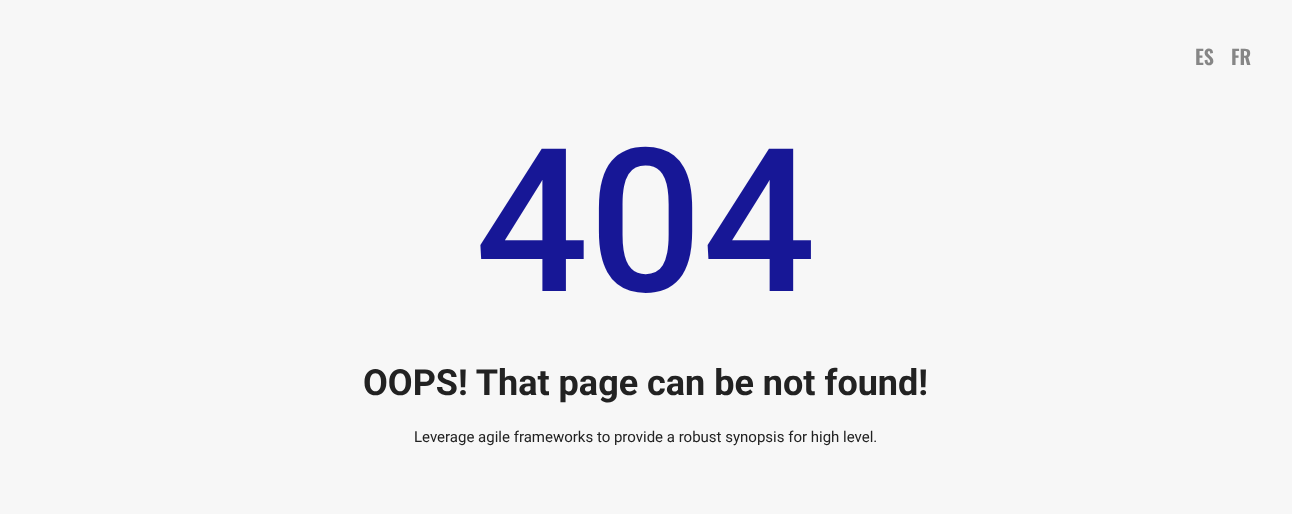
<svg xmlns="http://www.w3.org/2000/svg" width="1292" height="514">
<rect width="100%" height="100%" fill="#f7f7f7"/>
<text x="1195" y="65" style="font-family:Oswald;font-size:20px;font-weight:600;fill:#868686">ES</text>
<text x="1231" y="65" style="font-family:Oswald;font-size:20px;font-weight:600;fill:#868686">FR</text>
<text x="475" y="291" style="font-family:Roboto;font-size:200px;font-weight:500;fill:#171796">404</text>
<text x="363" y="395" style="font-family:Roboto;font-size:36px;font-weight:bold;fill:#222">OOPS! That page can be not found!</text>
<text x="414" y="442" style="font-family:Roboto;font-size:15px;fill:#222">Leverage agile frameworks to provide a robust synopsis for high level.</text>
</svg>
